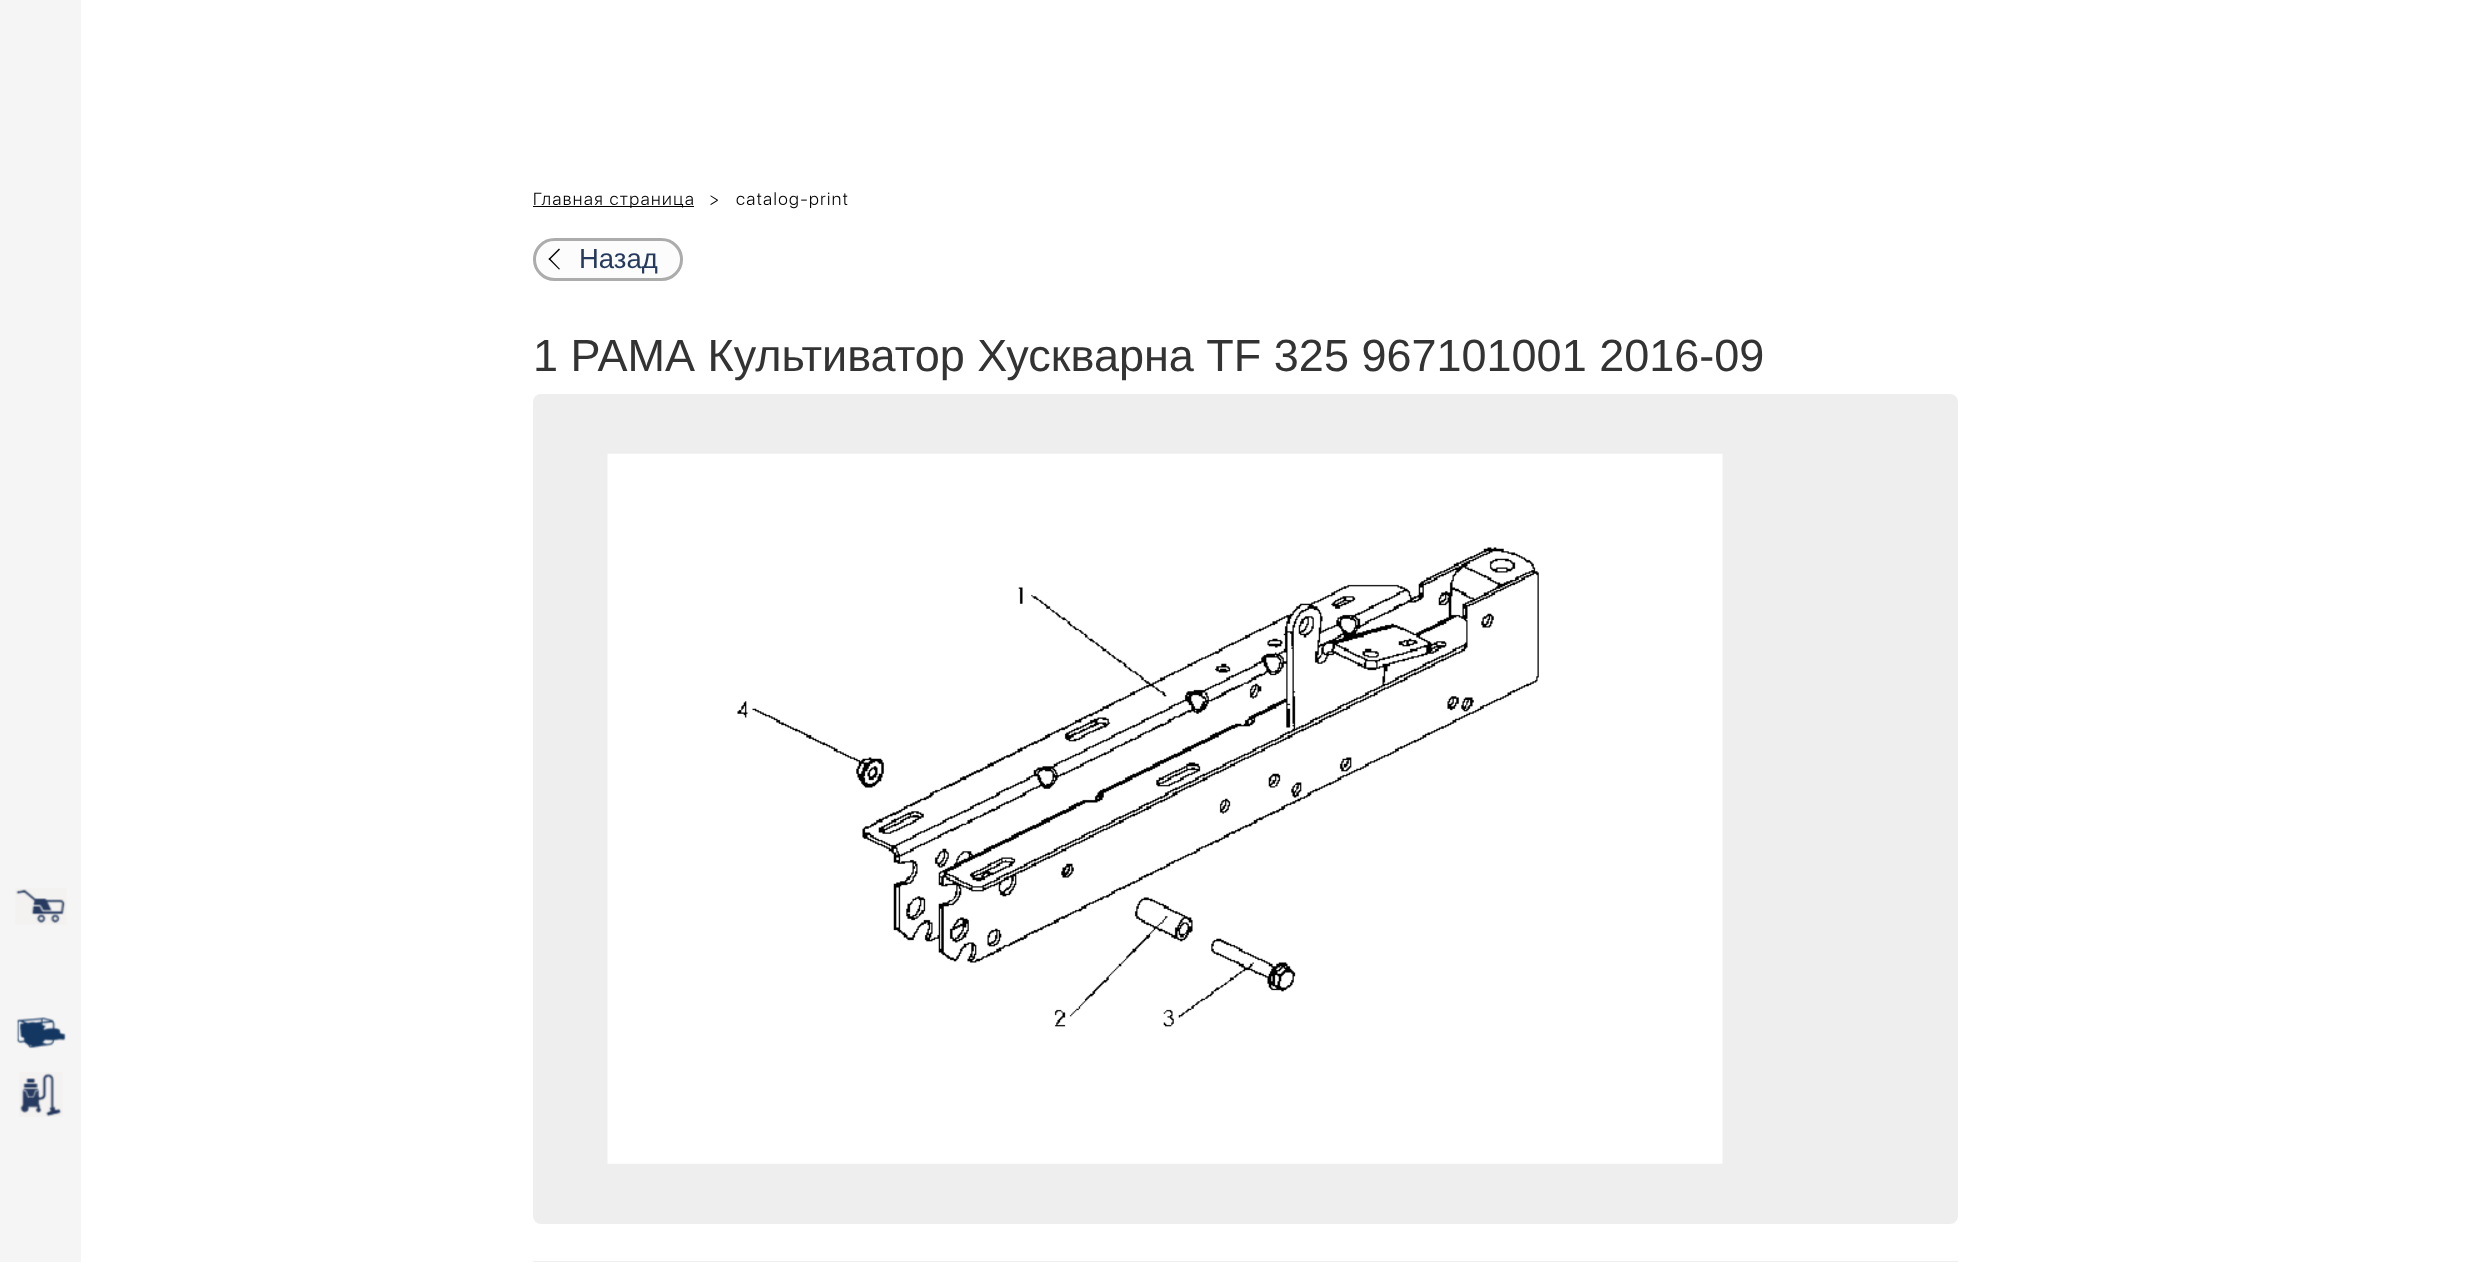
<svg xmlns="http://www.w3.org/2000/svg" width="2490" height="1262">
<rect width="100%" height="100%" fill="#fff"/>
<rect width="81" height="1262" fill="#f5f5f5"/>
<image x="15" y="888" width="52" height="37" href="media/1.png"/>
<image x="16" y="1017" width="50" height="32" href="media/2.png"/>
<image x="19" y="1072" width="44" height="45" href="media/3.png"/>
<rect x="533" y="206" width="161" height="1" fill="#000"/>
<text x="533" y="205" style="font-family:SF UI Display;font-size:17.5px;font-weight:300;letter-spacing:1.4px;fill:#000">Главная страница</text>
<text x="709" y="205" style="font-family:SF UI Display;font-size:17.5px;font-weight:300;letter-spacing:1.4px;fill:#000">&gt;</text>
<text x="736" y="205" style="font-family:SF UI Display;font-size:17.5px;font-weight:300;letter-spacing:1.4px;fill:#000">catalog-print</text>
<rect x="534.5" y="239.5" width="147" height="40" rx="20" fill="#fcfcfc" stroke="#acacac" stroke-width="3"/>
<path d="M548.5 259l10.5-10.5l1 1l-10.5 10.5z" fill="#000"/>
<path d="M548.5 259l1-1l10.5 11l-1 .5z" fill="#000"/>
<text x="579" y="268" style="font-family:Liberation Sans;font-size:27.5px;fill:#263a5f">Назад</text>
<text x="533" y="371" style="font-family:Liberation Sans;font-size:45px;fill:#333">1 РАМА Культиватор Хускварна TF 325 967101001 2016-09</text>
<rect x="533" y="394" width="1425" height="830" rx="8" fill="#eee"/>
<image x="607" y="453" width="1116" height="711" href="media/4.png"/>
<rect x="533" y="1261" width="1425" height="1" fill="#eee"/>
</svg>
